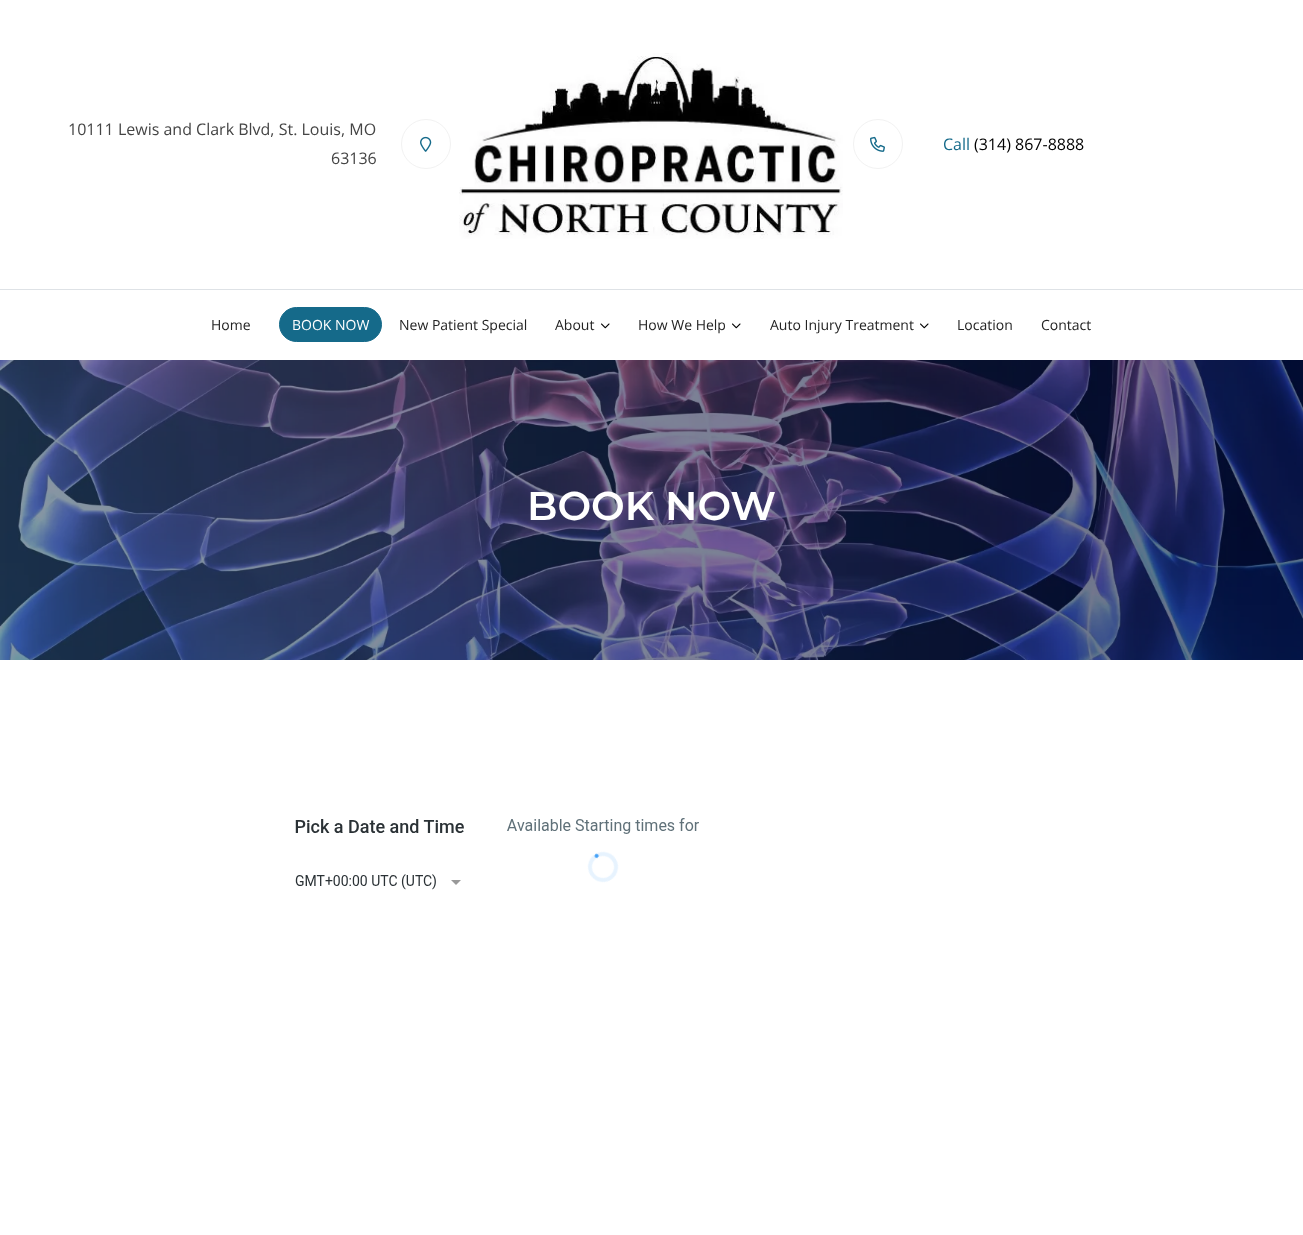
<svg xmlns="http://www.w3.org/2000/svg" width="1303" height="1235">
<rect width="100%" height="100%" fill="#fff"/>
<rect y="289" width="1303" height="1" fill="#dee2e6"/>
<text x="68" y="135" style="font-family:Open Sans;font-size:16px;fill:#454545">10111 Lewis and Clark Blvd, St. Louis, MO</text>
<text x="331" y="164" style="font-family:Open Sans;font-size:16px;fill:#454545">63136</text>
<circle cx="426" cy="144" r="24.5" fill="none" stroke="#f2f2f2"/>
<image x="420" y="136" width="12" height="16" href="media/1.png"/>
<image x="459" y="53" width="384" height="186" href="media/2.png"/>
<circle cx="878" cy="144" r="24.5" fill="none" stroke="#f2f2f2"/>
<image x="870" y="136" width="15" height="16" href="media/3.png"/>
<text x="943" y="150" style="font-family:Open Sans;font-size:16px;fill:#156a8a">Call</text>
<text x="974" y="150" style="font-family:Open Sans;font-size:16px;fill:#000">(314) 867-8888</text>
<text x="211" y="330" style="font-family:Open Sans;font-size:14px;fill:#232323">Home</text>
<rect x="279.5" y="307.5" width="102" height="34" rx="17" fill="#156a8a" stroke="#156a8a"/>
<text x="292" y="330" style="font-family:Open Sans;font-size:14px;fill:#fff">BOOK NOW</text>
<text x="399" y="330" style="font-family:Open Sans;font-size:14px;fill:#232323">New Patient Special</text>
<text x="555" y="330" style="font-family:Open Sans;font-size:14px;fill:#232323">About</text>
<image x="601" y="323" width="9" height="6" href="media/4.png"/>
<text x="638" y="330" style="font-family:Open Sans;font-size:14px;fill:#232323">How We Help</text>
<image x="732" y="323" width="9" height="6" href="media/4.png"/>
<text x="770" y="330" style="font-family:Open Sans;font-size:14px;fill:#232323">Auto Injury Treatment</text>
<image x="920" y="323" width="9" height="6" href="media/4.png"/>
<text x="957" y="330" style="font-family:Open Sans;font-size:14px;fill:#232323">Location</text>
<text x="1041" y="330" style="font-family:Open Sans;font-size:14px;fill:#232323">Contact</text>
<image x="0" y="360" width="1303" height="300" href="media/5.png"/>
<text x="527" y="520" style="font-family:Montserrat;font-size:40px;font-weight:100;fill:#fff">BOOK NOW</text>
<image x="295" y="818" width="404" height="72" href="media/6.png"/>
</svg>
